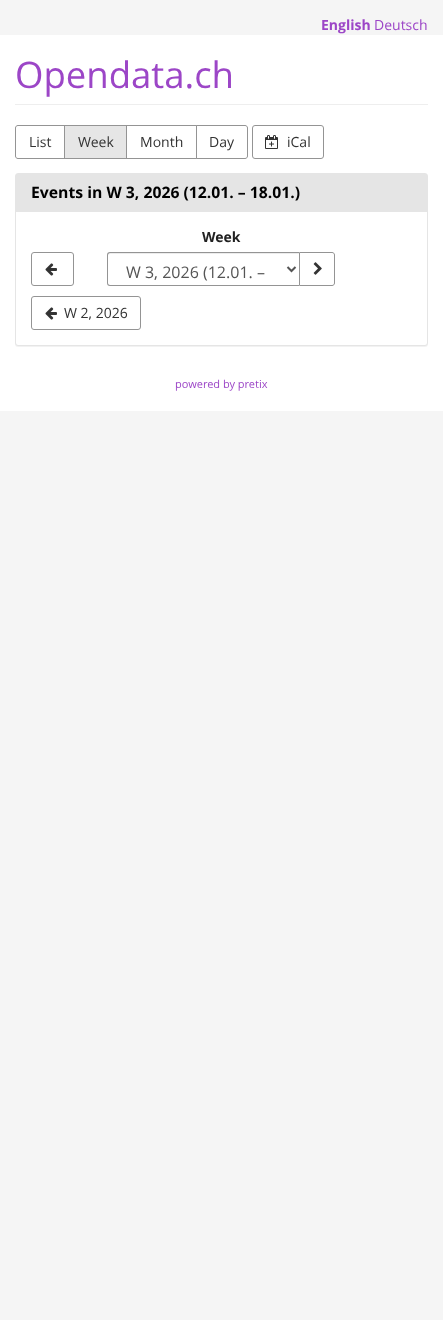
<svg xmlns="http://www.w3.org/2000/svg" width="443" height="1320">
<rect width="100%" height="100%" fill="#f5f5f5"/>
<text x="321" y="30" style="font-family:Open Sans;font-size:14px;font-weight:bold;fill:#9c46c7">English</text>
<text x="374" y="30" style="font-family:Open Sans;font-size:14px;fill:#9c46c7">Deutsch</text>
<rect y="35" width="443" height="376" fill="#fff"/>
<rect x="15" y="104" width="413" height="1" fill="#eee"/>
<text x="15" y="88" style="font-family:Open Sans;font-size:36.5px;fill:#9c46c7">Opendata.ch</text>
<path d="M18 125.5h46.5v33h-46.5c-1.5 0-2.5-1-2.5-2.5v-28c0-1.5 1-2.5 2.5-2.5z" fill="none" stroke="#949494"/>
<text x="29" y="147" style="font-family:Open Sans;font-size:14px;fill:#333">List</text>
<rect x="126.5" y="125.5" width="70" height="33" fill="none" stroke="#949494"/>
<rect x="64.5" y="125.5" width="62" height="33" fill="#e6e6e6" stroke="#949494"/>
<text x="78" y="147" style="font-family:Open Sans;font-size:14px;fill:#333">Week</text>
<text x="140" y="147" style="font-family:Open Sans;font-size:14px;fill:#333">Month</text>
<path d="M196.5 125.5h48.5c1.5 0 2.5 1 2.5 2.5v28c0 1.5-1 2.5-2.5 2.5h-48.5z" fill="#fff" stroke="#949494"/>
<text x="209" y="147" style="font-family:Open Sans;font-size:14px;fill:#333">Day</text>
<rect x="252.5" y="125.5" width="71" height="33" rx="2.5" fill="none" stroke="#949494"/>
<image x="265" y="135" width="13" height="14" href="media/1.png"/>
<text x="287" y="147" style="font-family:Open Sans;font-size:14px;fill:#333">iCal</text>
<rect x="15" y="174" width="413" height="173" rx="3" fill="#0000000d" filter="blur(0.5px)"/>
<rect x="15.5" y="173.5" width="412" height="172" rx="2.5" fill="#fff" stroke="#e5e5e5"/>
<rect x="16" y="174" width="411" height="38" fill="#e5e5e5"/>
<text x="31" y="198" style="font-family:Open Sans;font-size:15.75px;font-weight:bold;fill:#000">Events in W 3, 2026 (12.01. – 18.01.)</text>
<rect x="31.5" y="252.5" width="42" height="33" rx="2.5" fill="none" stroke="#949494"/>
<image x="45" y="263" width="12" height="13" href="media/2.png"/>
<text x="202" y="242" style="font-family:Open Sans;font-size:14px;font-weight:bold;fill:#222">Week</text>
<path d="M110 254h189v-1h-189c-2 0-2 2-2 3c0-1 1-2 2-2z" fill="#ececec"/>
<path d="M110 252h189v34h-189c-2 0-3-1-3-3v-28c0-2 1-3 3-3zm0 1h189v32h-189c-1 0-2-1-2-2v-28c0-1 1-2 2-2z" fill="#949494" fill-rule="evenodd"/>
<path d="M287.5 267l4 4l4-4" fill="none" stroke="#555" stroke-width="2"/>
<text x="126" y="278" style="font-family:Open Sans;font-size:16px;fill:#555">W 3, 2026 (12.01. –</text>
<path d="M299.5 252.5h32.5c1.5 0 2.5 1 2.5 2.5v28c0 1.5-1 2.5-2.5 2.5h-32.5z" fill="none" stroke="#949494"/>
<image x="313" y="262" width="9" height="13" href="media/3.png"/>
<rect x="31.5" y="296.5" width="109" height="33" rx="2.5" fill="none" stroke="#949494"/>
<image x="45" y="307" width="12" height="13" href="media/2.png"/>
<text x="64" y="318" style="font-family:Open Sans;font-size:14px;fill:#333">W 2, 2026</text>
<text x="175" y="388" style="font-family:Open Sans;font-size:11px;fill:#9c46c7">powered by pretix</text>
</svg>
